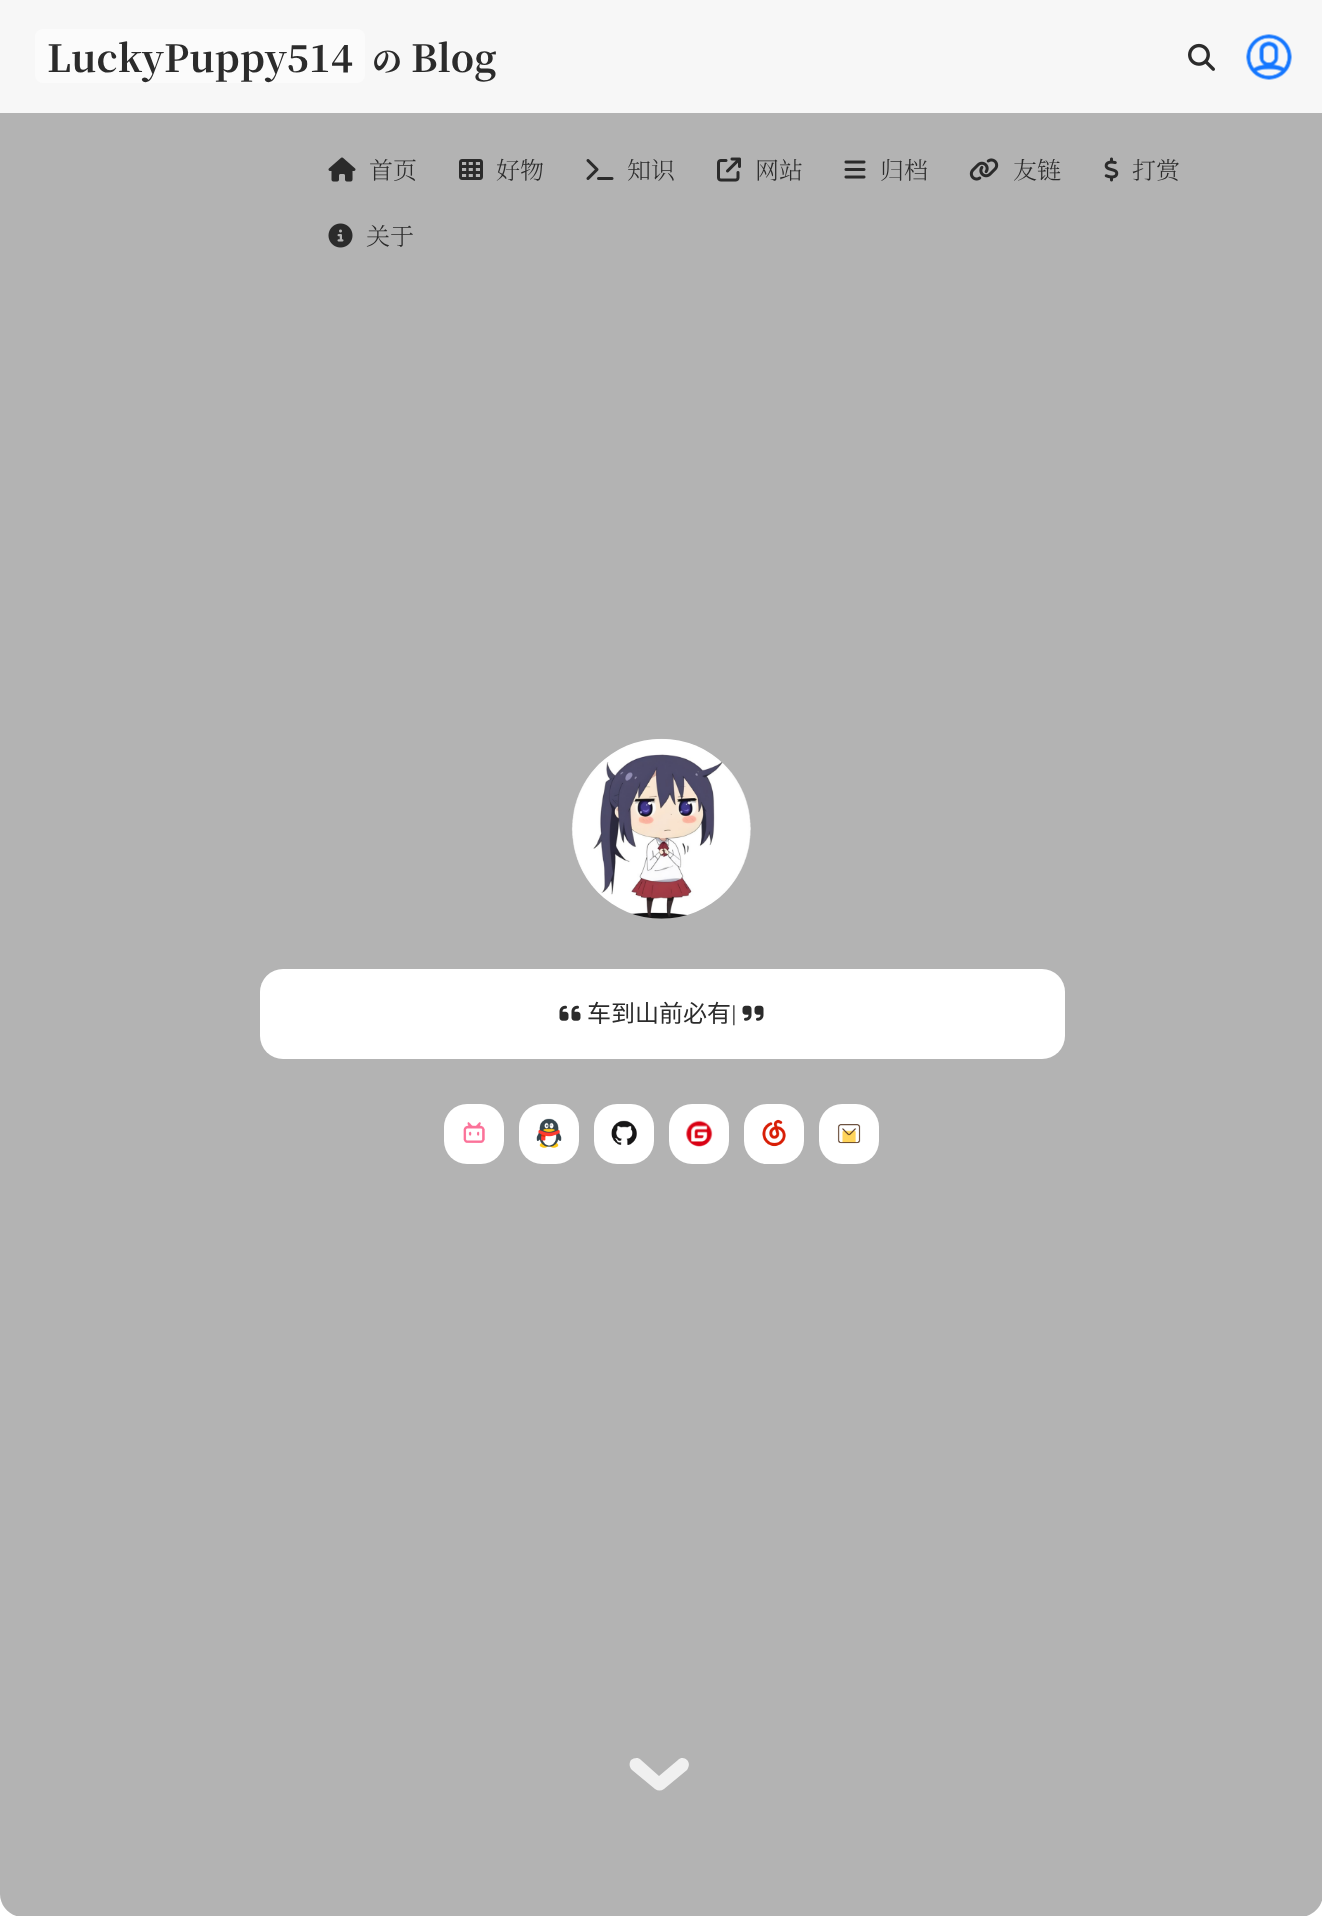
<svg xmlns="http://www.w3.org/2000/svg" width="1322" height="1916">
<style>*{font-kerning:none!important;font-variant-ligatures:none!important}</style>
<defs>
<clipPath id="clip1"><rect x="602" y="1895" width="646" height="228" rx="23"/></clipPath>
</defs>
<rect width="100%" height="100%" fill="#fff"/>
<path d="M0 0h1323v1894c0 12.5-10.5 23-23 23h-1277c-12.5 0-23-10.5-23-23z" fill="#b3b3b3"/>
<rect width="1322" height="113" fill="#f7f7f7"/>
<rect x="35" y="29" width="330" height="54" rx="8" fill="#fbfbfb"/>
<text x="47" y="72" style="font-family:Noto Serif SC;font-size:37.5px;font-weight:bold;fill:#2b2b2b">LuckyPuppy514</text>
<text x="372" y="72" style="font-family:Noto Serif SC;font-size:30px;font-weight:800;fill:#2b2b2b">の</text>
<text x="411" y="72" style="font-family:Noto Serif SC;font-size:37.5px;font-weight:bold;fill:#2b2b2b">Blog</text>
<image x="1188" y="43" width="27" height="28" href="media/1.png"/>
<image x="1246" y="34" width="46" height="46" href="media/2.png"/>
<image x="328" y="157" width="28" height="25" href="media/3.png"/>
<text x="369" y="179" style="font-family:Noto Serif SC;font-size:24px;font-weight:300;fill:#2b2b2b">首页</text>
<image x="459" y="159" width="24" height="21" href="media/4.png"/>
<text x="496" y="179" style="font-family:Noto Serif SC;font-size:24px;font-weight:300;fill:#2b2b2b">好物</text>
<image x="586" y="159" width="28" height="21" href="media/5.png"/>
<text x="627" y="179" style="font-family:Noto Serif SC;font-size:24px;font-weight:300;fill:#2b2b2b">知识</text>
<image x="717" y="157" width="24" height="25" href="media/6.png"/>
<text x="755" y="179" style="font-family:Noto Serif SC;font-size:24px;font-weight:300;fill:#2b2b2b">网站</text>
<image x="844" y="160" width="22" height="19" href="media/7.png"/>
<text x="880" y="179" style="font-family:Noto Serif SC;font-size:24px;font-weight:300;fill:#2b2b2b">归档</text>
<image x="969" y="158" width="30" height="23" href="media/8.png"/>
<text x="1013" y="179" style="font-family:Noto Serif SC;font-size:24px;font-weight:300;fill:#2b2b2b">友链</text>
<image x="1104" y="157" width="15" height="25" href="media/9.png"/>
<text x="1132" y="179" style="font-family:Noto Serif SC;font-size:24px;font-weight:300;fill:#2b2b2b">打赏</text>
<image x="328" y="223" width="25" height="25" href="media/10.png"/>
<text x="366" y="245" style="font-family:Noto Serif SC;font-size:24px;font-weight:300;fill:#2b2b2b">关于</text>
<image x="571" y="738" width="180" height="181" href="media/11.png"/>
<rect x="260" y="969" width="805" height="90" rx="23" fill="#fff"/>
<image x="559" y="1005" width="22" height="16" href="media/12.png"/>
<text x="587" y="1022" style="font-family:Noto Sans CJK SC;font-size:24px;fill:#2b2b2b">车到山前必有</text>
<text x="731" y="1022" style="font-family:PT Serif;font-size:24px;fill:#2b2b2b">|</text>
<image x="742" y="1005" width="22" height="16" href="media/13.png"/>
<rect x="444" y="1104" width="60" height="60" rx="23" fill="#fff"/>
<image x="463" y="1122" width="22" height="21" href="media/14.png"/>
<rect x="519" y="1104" width="60" height="60" rx="23" fill="#fff"/>
<image x="536" y="1118" width="26" height="30" href="media/15.png"/>
<rect x="594" y="1104" width="60" height="60" rx="23" fill="#fff"/>
<image x="611" y="1120" width="26" height="25" href="media/16.png"/>
<rect x="669" y="1104" width="60" height="60" rx="23" fill="#fff"/>
<image x="686" y="1120" width="27" height="27" href="media/17.png"/>
<rect x="744" y="1104" width="60" height="60" rx="23" fill="#fff"/>
<image x="762" y="1119" width="24" height="28" href="media/18.png"/>
<rect x="819" y="1104" width="60" height="60" rx="23" fill="#fff"/>
<image x="837" y="1124" width="24" height="20" href="media/19.png"/>
<path d="M678 1760c3-3 7-2 9 0c3 3 2 7 0 10l-23 19c-3 2-6 2-9 0l-23-19c-3-3-3-7-1-10c3-2 7-3 10 0l18 16z" fill="#f0f0f0"/>
<g clip-path="url(#clip1)">
<rect x="639" y="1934" width="171" height="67" rx="17" fill="#e8e8e8" filter="blur(22.5px)"/>
<rect x="837" y="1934" width="176" height="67" rx="17" fill="#e8e8e8" filter="blur(22.5px)"/>
<rect x="1040" y="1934" width="171" height="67" rx="17" fill="#e8e8e8" filter="blur(22.5px)"/>
</g>
</svg>
